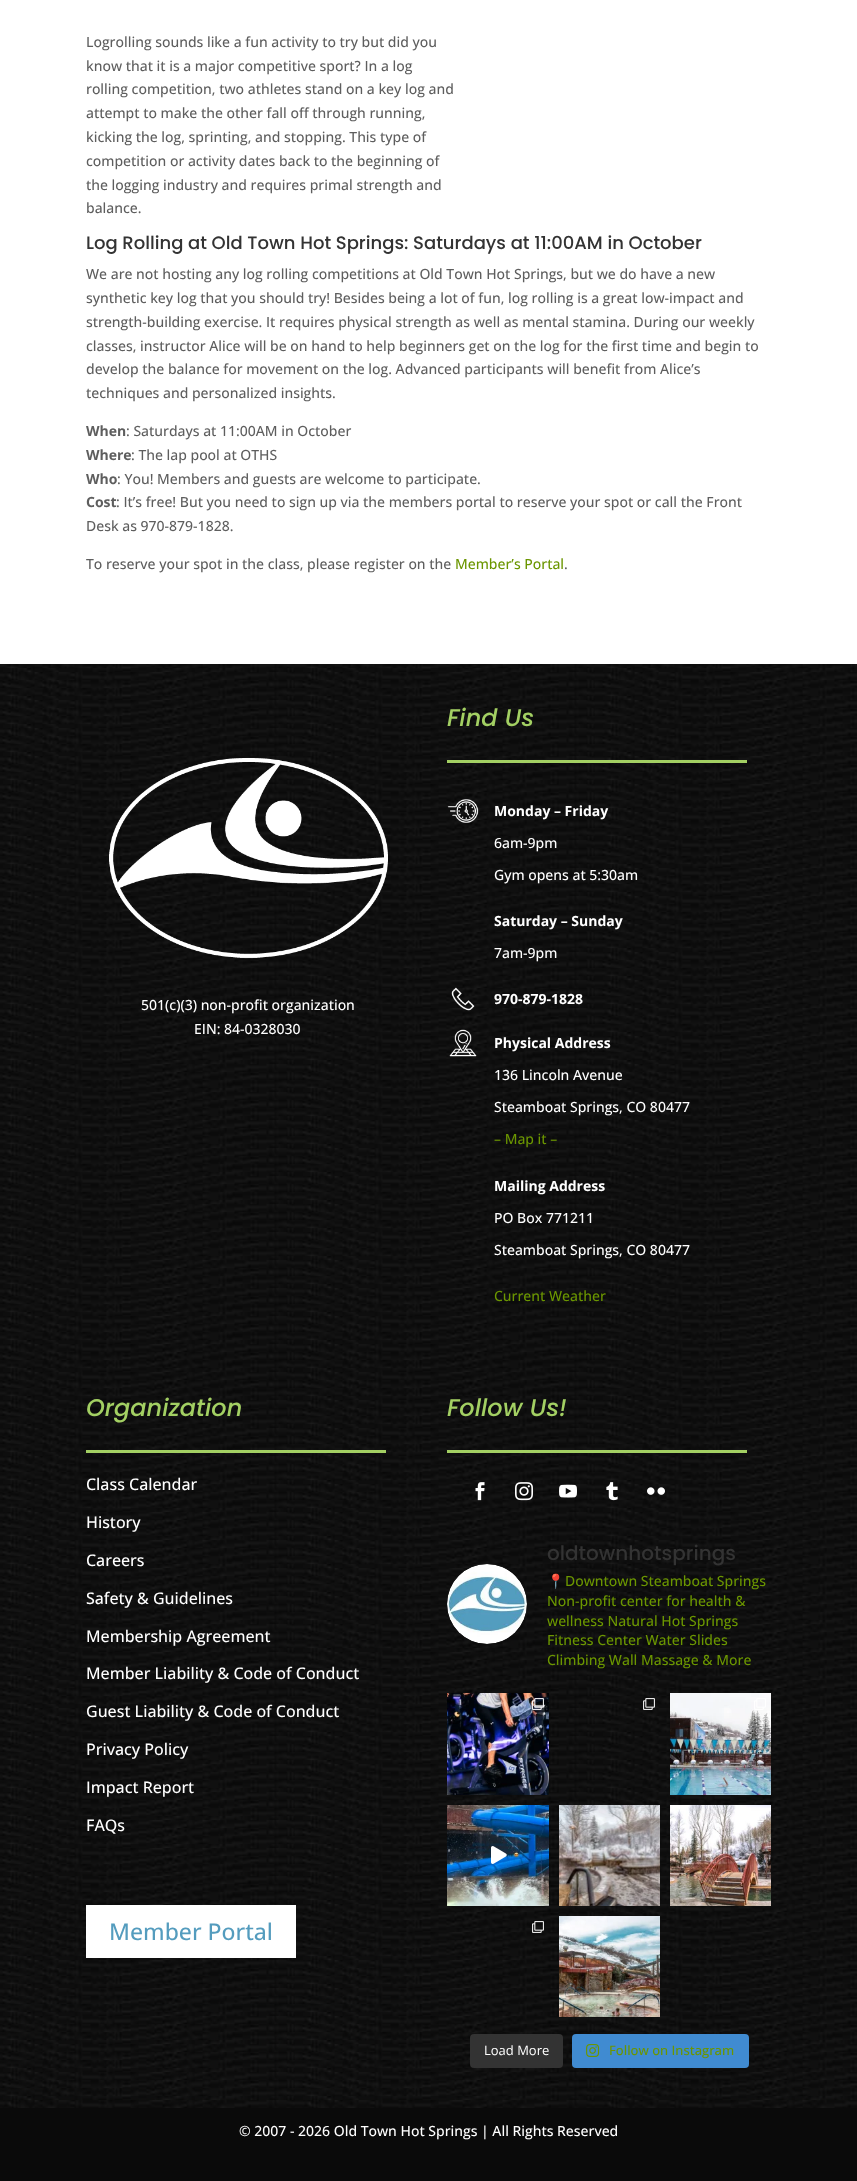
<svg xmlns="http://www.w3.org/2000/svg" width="857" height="2181">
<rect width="100%" height="100%" fill="#fff"/>
<text x="86" y="47" style="font-family:Open Sans;font-size:14px;font-weight:500;fill:#5e5e5e">Logrolling sounds like a fun activity to try but did you</text>
<text x="86" y="71" style="font-family:Open Sans;font-size:14px;font-weight:500;fill:#5e5e5e">know that it is a major competitive sport? In a log</text>
<text x="86" y="94" style="font-family:Open Sans;font-size:14px;font-weight:500;fill:#5e5e5e">rolling competition, two athletes stand on a key log and</text>
<text x="86" y="118" style="font-family:Open Sans;font-size:14px;font-weight:500;fill:#5e5e5e">attempt to make the other fall off through running,</text>
<text x="86" y="142" style="font-family:Open Sans;font-size:14px;font-weight:500;fill:#5e5e5e">kicking the log, sprinting, and stopping. This type of</text>
<text x="86" y="166" style="font-family:Open Sans;font-size:14px;font-weight:500;fill:#5e5e5e">competition or activity dates back to the beginning of</text>
<text x="86" y="190" style="font-family:Open Sans;font-size:14px;font-weight:500;fill:#5e5e5e">the logging industry and requires primal strength and</text>
<text x="86" y="213" style="font-family:Open Sans;font-size:14px;font-weight:500;fill:#5e5e5e">balance.</text>
<text x="86" y="249" style="font-family:Poppins;font-size:18px;font-weight:500;fill:#333">Log Rolling at Old Town Hot Springs: Saturdays at 11:00AM in October</text>
<text x="86" y="279" style="font-family:Open Sans;font-size:14px;font-weight:500;fill:#5e5e5e">We are not hosting any log rolling competitions at Old Town Hot Springs, but we do have a new</text>
<text x="86" y="303" style="font-family:Open Sans;font-size:14px;font-weight:500;fill:#5e5e5e">synthetic key log that you should try! Besides being a lot of fun, log rolling is a great low-impact and</text>
<text x="86" y="327" style="font-family:Open Sans;font-size:14px;font-weight:500;fill:#5e5e5e">strength-building exercise. It requires physical strength as well as mental stamina. During our weekly</text>
<text x="86" y="351" style="font-family:Open Sans;font-size:14px;font-weight:500;fill:#5e5e5e">classes, instructor Alice will be on hand to help beginners get on the log for the first time and begin to</text>
<text x="86" y="374" style="font-family:Open Sans;font-size:14px;font-weight:500;fill:#5e5e5e">develop the balance for movement on the log. Advanced participants will benefit from Alice’s</text>
<text x="86" y="398" style="font-family:Open Sans;font-size:14px;font-weight:500;fill:#5e5e5e">techniques and personalized insights.</text>
<text x="86" y="436" style="font-family:Open Sans;font-size:14px;font-weight:bold;fill:#5e5e5e">When</text>
<text x="126" y="436" style="font-family:Open Sans;font-size:14px;font-weight:500;fill:#5e5e5e">: Saturdays at 11:00AM in October</text>
<text x="86" y="460" style="font-family:Open Sans;font-size:14px;font-weight:bold;fill:#5e5e5e">Where</text>
<text x="131" y="460" style="font-family:Open Sans;font-size:14px;font-weight:500;fill:#5e5e5e">: The lap pool at OTHS</text>
<text x="86" y="484" style="font-family:Open Sans;font-size:14px;font-weight:bold;fill:#5e5e5e">Who</text>
<text x="117" y="484" style="font-family:Open Sans;font-size:14px;font-weight:500;fill:#5e5e5e">: You! Members and guests are welcome to participate.</text>
<text x="86" y="507" style="font-family:Open Sans;font-size:14px;font-weight:bold;fill:#5e5e5e">Cost</text>
<text x="116" y="507" style="font-family:Open Sans;font-size:14px;font-weight:500;fill:#5e5e5e">: It’s free! But you need to sign up via the members portal to reserve your spot or call the Front</text>
<text x="86" y="531" style="font-family:Open Sans;font-size:14px;font-weight:500;fill:#5e5e5e">Desk as 970-879-1828.</text>
<text x="86" y="569" style="font-family:Open Sans;font-size:14px;font-weight:500;fill:#5e5e5e">To reserve your spot in the class, please register on the</text>
<text x="455" y="569" style="font-family:Open Sans;font-size:14px;font-weight:500;fill:#6b9600">Member’s Portal</text>
<text x="564" y="569" style="font-family:Open Sans;font-size:14px;font-weight:500;fill:#5e5e5e">.</text>
<image x="0" y="664" width="857" height="1444" href="media/1.png"/>
<image x="109" y="758" width="279" height="201" href="media/2.png"/>
<text x="141" y="1010" style="font-family:Open Sans;font-size:14px;font-weight:500;fill:#fff">501(c)(3) non-profit organization</text>
<text x="194" y="1034" style="font-family:Open Sans;font-size:14px;font-weight:500;fill:#fff">EIN: 84-0328030</text>
<text x="447" y="726" style="font-family:Poppins;font-size:24px;font-weight:500;font-style:italic;fill:#a3d063">Find Us</text>
<rect x="447" y="760" width="300" height="3" fill="#a3d063"/>
<image x="447" y="799" width="32" height="24" href="media/3.png"/>
<text x="494" y="816" style="font-family:Open Sans;font-size:14px;font-weight:bold;fill:#fff">Monday – Friday</text>
<text x="494" y="848" style="font-family:Open Sans;font-size:14px;font-weight:500;fill:#fff">6am-9pm</text>
<text x="494" y="880" style="font-family:Open Sans;font-size:14px;font-weight:500;fill:#fff">Gym opens at 5:30am</text>
<text x="494" y="926" style="font-family:Open Sans;font-size:14px;font-weight:bold;fill:#fff">Saturday – Sunday</text>
<text x="494" y="958" style="font-family:Open Sans;font-size:14px;font-weight:500;fill:#fff">7am-9pm</text>
<image x="451" y="987" width="24" height="24" href="media/4.png"/>
<text x="494" y="1004" style="font-family:Open Sans;font-size:14px;font-weight:bold;fill:#fff">970-879-1828</text>
<image x="449" y="1029" width="28" height="28" href="media/5.png"/>
<text x="494" y="1048" style="font-family:Open Sans;font-size:14px;font-weight:bold;fill:#fff">Physical Address</text>
<text x="494" y="1080" style="font-family:Open Sans;font-size:14px;font-weight:500;fill:#fff">136 Lincoln Avenue</text>
<text x="494" y="1112" style="font-family:Open Sans;font-size:14px;font-weight:500;fill:#fff">Steamboat Springs, CO 80477</text>
<text x="494" y="1144" style="font-family:Open Sans;font-size:14px;font-weight:500;fill:#6b9600">– Map it –</text>
<text x="494" y="1191" style="font-family:Open Sans;font-size:14px;font-weight:bold;fill:#fff">Mailing Address</text>
<text x="494" y="1223" style="font-family:Open Sans;font-size:14px;font-weight:500;fill:#fff">PO Box 771211</text>
<text x="494" y="1255" style="font-family:Open Sans;font-size:14px;font-weight:500;fill:#fff">Steamboat Springs, CO 80477</text>
<text x="494" y="1301" style="font-family:Open Sans;font-size:14px;font-weight:500;fill:#6b9600">Current Weather</text>
<text x="86" y="1416" style="font-family:Poppins;font-size:24px;font-weight:500;font-style:italic;fill:#a3d063">Organization</text>
<rect x="86" y="1450" width="300" height="3" fill="#a3d063"/>
<text x="86" y="1490" style="font-family:Open Sans;font-size:16px;font-weight:500;fill:#fff">Class Calendar</text>
<text x="86" y="1528" style="font-family:Open Sans;font-size:16px;font-weight:500;fill:#fff">History</text>
<text x="86" y="1566" style="font-family:Open Sans;font-size:16px;font-weight:500;fill:#fff">Careers</text>
<text x="86" y="1604" style="font-family:Open Sans;font-size:16px;font-weight:500;fill:#fff">Safety &amp; Guidelines</text>
<text x="86" y="1642" style="font-family:Open Sans;font-size:16px;font-weight:500;fill:#fff">Membership Agreement</text>
<text x="86" y="1679" style="font-family:Open Sans;font-size:16px;font-weight:500;fill:#fff">Member Liability &amp; Code of Conduct</text>
<text x="86" y="1717" style="font-family:Open Sans;font-size:16px;font-weight:500;fill:#fff">Guest Liability &amp; Code of Conduct</text>
<text x="86" y="1755" style="font-family:Open Sans;font-size:16px;font-weight:500;fill:#fff">Privacy Policy</text>
<text x="86" y="1793" style="font-family:Open Sans;font-size:16px;font-weight:500;fill:#fff">Impact Report</text>
<text x="86" y="1831" style="font-family:Open Sans;font-size:16px;font-weight:500;fill:#fff">FAQs</text>
<rect x="86" y="1905" width="210" height="53" fill="#fff"/>
<text x="109" y="1940" style="font-family:Open Sans;font-size:23px;font-weight:500;fill:#549cbe">Member Portal</text>
<text x="447" y="1416" style="font-family:Poppins;font-size:24px;font-weight:500;font-style:italic;fill:#a3d063">Follow Us!</text>
<rect x="447" y="1450" width="300" height="3" fill="#a3d063"/>
<image x="475" y="1482" width="10" height="19" href="media/6.png"/>
<image x="515" y="1482" width="18" height="19" href="media/7.png"/>
<image x="559" y="1484" width="18" height="14" href="media/8.png"/>
<image x="606" y="1482" width="12" height="19" href="media/9.png"/>
<image x="647" y="1487" width="18" height="8" href="media/10.png"/>
<image x="447" y="1564" width="80" height="80" href="media/11.png"/>
<text x="547" y="1560" style="font-family:Poppins;font-size:20px;font-weight:500;fill:#333">oldtownhotsprings</text>
<text x="547" y="1586" style="font-family:Noto Color Emoji;font-size:14px;fill:#6b9600">📍</text>
<text x="565" y="1586" style="font-family:Open Sans;font-size:14px;font-weight:500;fill:#6b9600">Downtown Steamboat Springs</text>
<text x="547" y="1606" style="font-family:Open Sans;font-size:14px;font-weight:500;fill:#6b9600">Non-profit center for health &amp;</text>
<text x="547" y="1626" style="font-family:Open Sans;font-size:14px;font-weight:500;fill:#6b9600">wellness Natural Hot Springs</text>
<text x="547" y="1645" style="font-family:Open Sans;font-size:14px;font-weight:500;fill:#6b9600">Fitness Center Water Slides</text>
<text x="547" y="1665" style="font-family:Open Sans;font-size:14px;font-weight:500;fill:#6b9600">Climbing Wall Massage &amp; More</text>
<image x="447" y="1693" width="102" height="102" href="media/12.png"/>
<image x="532" y="1698" width="12" height="12" href="media/13.png"/>
<image x="643" y="1698" width="12" height="12" href="media/14.png"/>
<image x="670" y="1693" width="101" height="102" href="media/15.png"/>
<image x="754" y="1698" width="12" height="12" href="media/16.png"/>
<image x="447" y="1805" width="102" height="101" href="media/17.png"/>
<image x="491" y="1846" width="16" height="18" href="media/18.png"/>
<image x="559" y="1805" width="101" height="101" href="media/19.png"/>
<image x="670" y="1805" width="101" height="101" href="media/20.png"/>
<image x="757" y="1813" width="9" height="9" href="media/21.png"/>
<image x="532" y="1921" width="12" height="12" href="media/22.png"/>
<image x="559" y="1916" width="101" height="101" href="media/23.png"/>
<rect x="470" y="2034" width="93" height="34" rx="4" fill="#333"/>
<text x="484" y="2055" style="font-family:Open Sans;font-size:13px;fill:#fff">Load More</text>
<rect x="572" y="2034" width="177" height="34" rx="4" fill="#408bd1"/>
<image x="586" y="2044" width="14" height="13" href="media/24.png"/>
<text x="609" y="2055" style="font-family:Open Sans;font-size:13px;font-weight:500;fill:#6b9600">Follow on Instagram</text>
<rect y="2108" width="857" height="73" fill="#0a0a0a"/>
<text x="239" y="2136" style="font-family:Open Sans;font-size:14px;font-weight:500;fill:#fff">© 2007 - 2026 Old Town Hot Springs | All Rights Reserved</text>
</svg>
